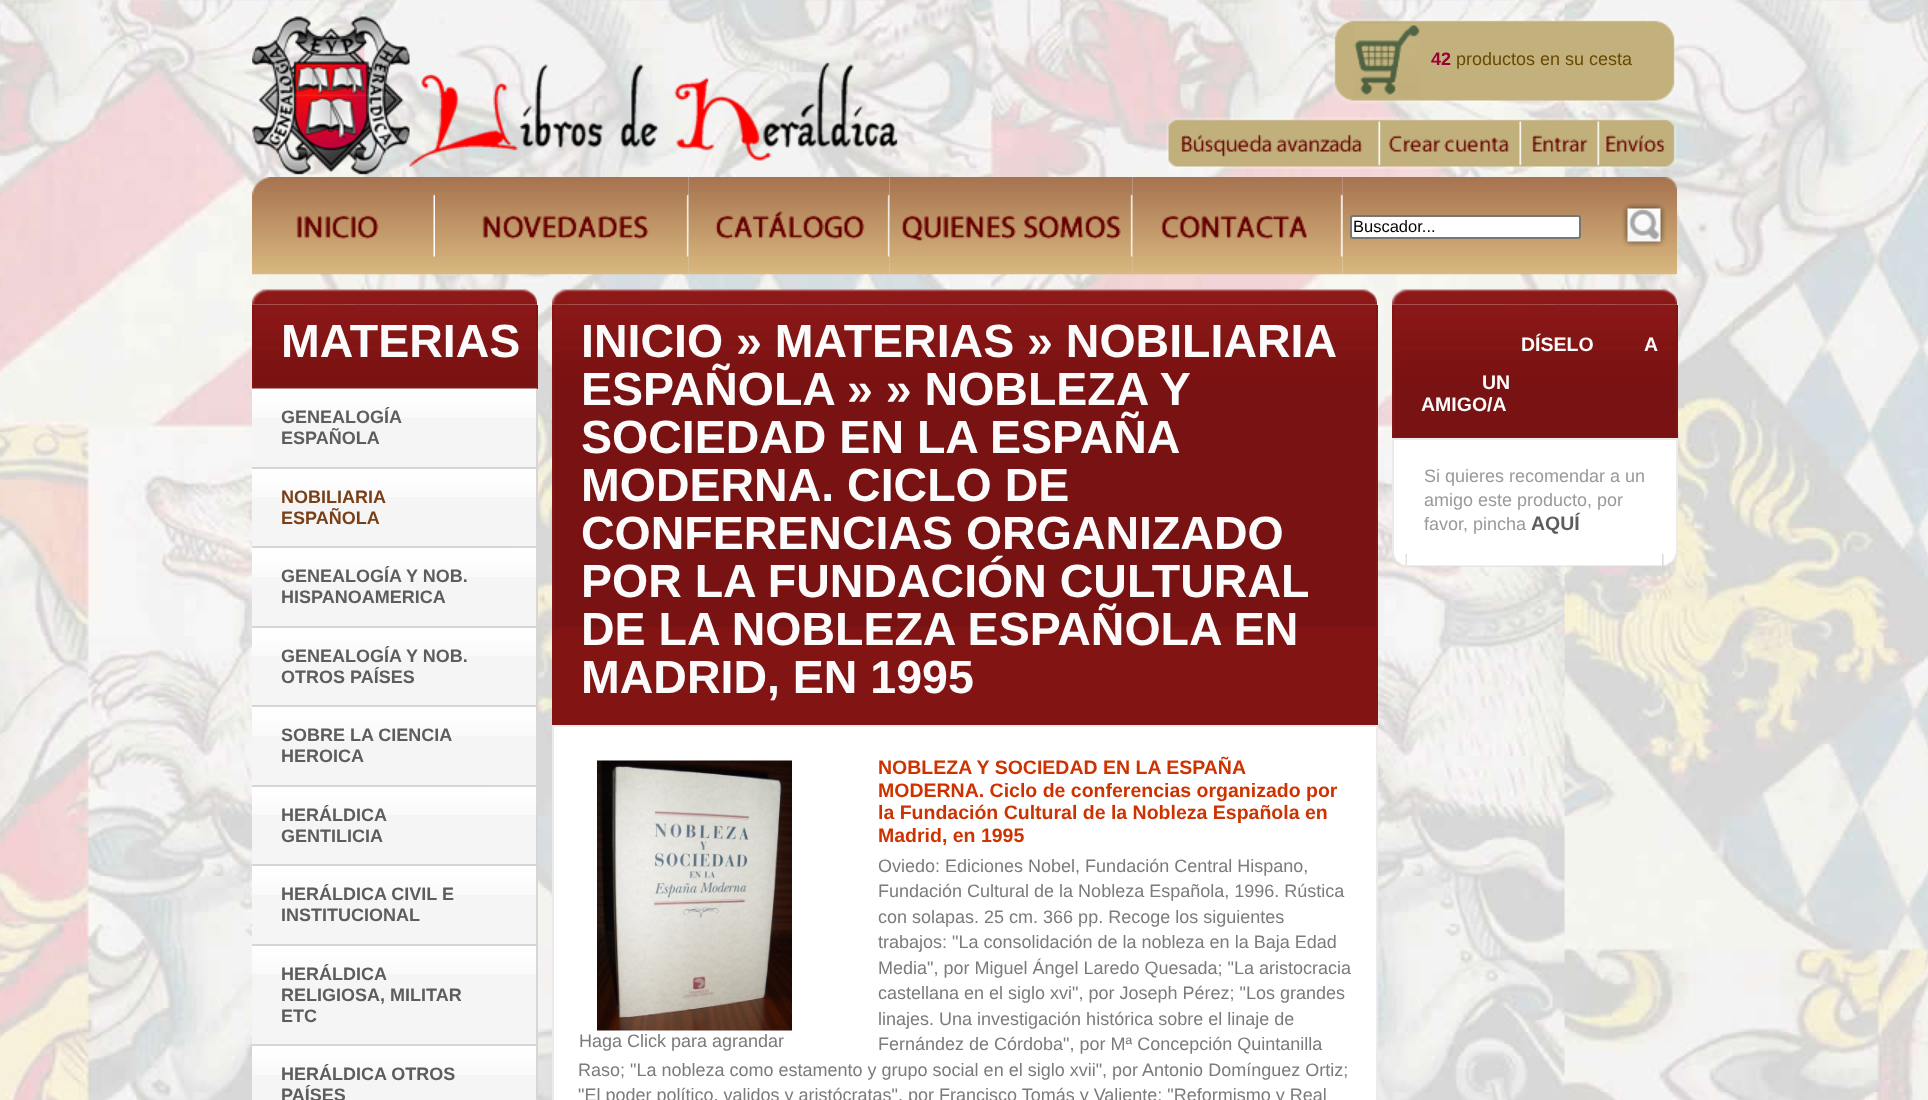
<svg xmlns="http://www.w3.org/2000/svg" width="1928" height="1100">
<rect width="100%" height="100%" fill="#fff"/>
<image x="0" y="0" width="1928" height="1100" href="media/1.png"/>
<image x="252" y="16" width="646" height="159" href="media/2.png"/>
<image x="1332" y="18" width="345" height="86" href="media/3.png"/>
<text x="1431" y="65" style="font-family:Liberation Sans;font-size:18px;font-weight:bold;fill:#903">42</text>
<text x="1456" y="65" style="font-family:Liberation Sans;font-size:18px;fill:#6c4900">productos en su cesta</text>
<image x="1166" y="117" width="217" height="52" href="media/4.png"/>
<image x="1383" y="116" width="141" height="53" href="media/5.png"/>
<image x="1524" y="117" width="78" height="52" href="media/6.png"/>
<image x="1602" y="117" width="75" height="52" href="media/7.png"/>
<image x="252" y="177" width="183" height="98" href="media/8.png"/>
<image x="435" y="177" width="254" height="98" href="media/9.png"/>
<image x="688" y="177" width="202" height="98" href="media/10.png"/>
<image x="889" y="177" width="244" height="98" href="media/11.png"/>
<image x="1342" y="177" width="335" height="98" href="media/13.png"/>
<image x="1132" y="177" width="211" height="98" href="media/12.png"/>
<rect x="1351" y="216" width="229" height="22" rx="2" fill="#fff" stroke="#767676" stroke-width="2"/>
<text x="1353" y="232" style="font-family:Liberation Sans;font-size:16.5px;fill:#000">Buscador...</text>
<image x="1622" y="203" width="44" height="44" href="media/14.png"/>
<image x="252" y="289" width="15" height="16" href="media/15.png"/>
<image x="522" y="289" width="15" height="16" href="media/16.png"/>
<image x="267" y="289" width="255" height="16" href="media/17.png"/>
<image x="252" y="304" width="285" height="83" href="media/18.png"/>
<rect x="536" y="305" width="2" height="84" fill="#831414"/>
<rect x="252" y="387" width="285" height="2" fill="#831414"/>
<rect x="252" y="305" width="2" height="84" fill="#831414"/>
<text x="281" y="357" style="font-family:Liberation Sans;font-size:46.5px;font-weight:bold;fill:#fbfbfb">MATERIAS</text>
<rect x="252" y="418" width="284" height="49" fill="#f5f5f5"/>
<image x="252" y="388" width="285" height="30" href="media/19.png"/>
<rect x="536" y="389" width="2" height="78" fill="#d7d6d6"/>
<text x="281" y="423" style="font-family:Liberation Sans;font-size:18px;font-weight:bold;fill:#5d5d5d">GENEALOGÍA</text>
<text x="281" y="444" style="font-family:Liberation Sans;font-size:18px;font-weight:bold;fill:#5d5d5d">ESPAÑOLA</text>
<rect x="252" y="497" width="284" height="49" fill="#f5f5f5"/>
<image x="252" y="469" width="284" height="28" href="media/20.png"/>
<rect x="252" y="467" width="285" height="2" fill="#d7d6d6"/>
<rect x="536" y="467" width="2" height="61" fill="#d7d6d6"/>
<text x="281" y="503" style="font-family:Liberation Sans;font-size:18px;font-weight:bold;fill:#793f17">NOBILIARIA</text>
<text x="281" y="524" style="font-family:Liberation Sans;font-size:18px;font-weight:bold;fill:#793f17">ESPAÑOLA</text>
<rect x="252" y="577" width="284" height="49" fill="#f5f5f5"/>
<image x="252" y="548" width="284" height="29" href="media/21.png"/>
<rect x="252" y="546" width="264" height="2" fill="#d7d6d6"/>
<rect x="536" y="582" width="2" height="44" fill="#d7d6d6"/>
<text x="281" y="582" style="font-family:Liberation Sans;font-size:18px;font-weight:bold;fill:#5d5d5d">GENEALOGÍA Y NOB.</text>
<text x="281" y="603" style="font-family:Liberation Sans;font-size:18px;font-weight:bold;fill:#5d5d5d">HISPANOAMERICA</text>
<rect x="252" y="656" width="284" height="49" fill="#f5f5f5"/>
<image x="252" y="628" width="284" height="28" href="media/20.png"/>
<rect x="252" y="626" width="285" height="2" fill="#d7d6d6"/>
<rect x="536" y="626" width="2" height="79" fill="#d7d6d6"/>
<text x="281" y="662" style="font-family:Liberation Sans;font-size:18px;font-weight:bold;fill:#5d5d5d">GENEALOGÍA Y NOB.</text>
<text x="281" y="683" style="font-family:Liberation Sans;font-size:18px;font-weight:bold;fill:#5d5d5d">OTROS PAÍSES</text>
<rect x="252" y="736" width="284" height="49" fill="#f5f5f5"/>
<image x="252" y="707" width="284" height="29" href="media/21.png"/>
<rect x="252" y="705" width="285" height="2" fill="#d7d6d6"/>
<rect x="536" y="705" width="2" height="15" fill="#d7d6d6"/>
<text x="281" y="741" style="font-family:Liberation Sans;font-size:18px;font-weight:bold;fill:#5d5d5d">SOBRE LA CIENCIA</text>
<text x="281" y="762" style="font-family:Liberation Sans;font-size:18px;font-weight:bold;fill:#5d5d5d">HEROICA</text>
<rect x="252" y="815" width="284" height="49" fill="#f5f5f5"/>
<image x="252" y="787" width="284" height="28" href="media/20.png"/>
<rect x="252" y="785" width="236" height="2" fill="#d7d6d6"/>
<rect x="536" y="805" width="2" height="59" fill="#d7d6d6"/>
<text x="281" y="821" style="font-family:Liberation Sans;font-size:18px;font-weight:bold;fill:#5d5d5d">HERÁLDICA</text>
<text x="281" y="842" style="font-family:Liberation Sans;font-size:18px;font-weight:bold;fill:#5d5d5d">GENTILICIA</text>
<rect x="252" y="895" width="284" height="49" fill="#f5f5f5"/>
<image x="252" y="866" width="284" height="29" href="media/21.png"/>
<rect x="252" y="864" width="285" height="2" fill="#d7d6d6"/>
<rect x="536" y="864" width="2" height="80" fill="#d7d6d6"/>
<text x="281" y="900" style="font-family:Liberation Sans;font-size:18px;font-weight:bold;fill:#5d5d5d">HERÁLDICA CIVIL E</text>
<text x="281" y="921" style="font-family:Liberation Sans;font-size:18px;font-weight:bold;fill:#5d5d5d">INSTITUCIONAL</text>
<rect x="252" y="974" width="284" height="70" fill="#f5f5f5"/>
<image x="252" y="946" width="284" height="28" href="media/20.png"/>
<rect x="252" y="944" width="285" height="2" fill="#d7d6d6"/>
<rect x="536" y="944" width="2" height="100" fill="#d7d6d6"/>
<text x="281" y="980" style="font-family:Liberation Sans;font-size:18px;font-weight:bold;fill:#5d5d5d">HERÁLDICA</text>
<text x="281" y="1001" style="font-family:Liberation Sans;font-size:18px;font-weight:bold;fill:#5d5d5d">RELIGIOSA, MILITAR</text>
<text x="281" y="1022" style="font-family:Liberation Sans;font-size:18px;font-weight:bold;fill:#5d5d5d">ETC</text>
<rect x="252" y="1075" width="284" height="25" fill="#f5f5f5"/>
<image x="252" y="1046" width="284" height="29" href="media/21.png"/>
<rect x="252" y="1044" width="285" height="2" fill="#d7d6d6"/>
<rect x="536" y="1044" width="2" height="56" fill="#d7d6d6"/>
<text x="281" y="1080" style="font-family:Liberation Sans;font-size:18px;font-weight:bold;fill:#5d5d5d">HERÁLDICA OTROS</text>
<text x="281" y="1101" style="font-family:Liberation Sans;font-size:18px;font-weight:bold;fill:#5d5d5d">PAÍSES</text>
<image x="552" y="289" width="15" height="16" href="media/22.png"/>
<image x="1362" y="289" width="15" height="16" href="media/23.png"/>
<image x="567" y="289" width="795" height="16" href="media/24.png"/>
<rect x="554" y="627" width="822" height="98" fill="#831414"/>
<image x="552" y="304" width="825" height="323" href="media/25.png"/>
<rect x="1376" y="305" width="2" height="420" fill="#831414"/>
<rect x="552" y="305" width="2" height="420" fill="#831414"/>
<text x="581" y="357" style="font-family:Liberation Sans;font-size:46.5px;font-weight:bold;fill:#fbfbfb">INICIO » MATERIAS » NOBILIARIA</text>
<text x="581" y="405" style="font-family:Liberation Sans;font-size:46.5px;font-weight:bold;fill:#fbfbfb">ESPAÑOLA</text>
<text x="847" y="405" style="font-family:Liberation Sans;font-size:46.5px;font-weight:bold;fill:#fbfbfb">» » NOBLEZA Y</text>
<text x="581" y="453" style="font-family:Liberation Sans;font-size:46.5px;font-weight:bold;fill:#fbfbfb">SOCIEDAD EN LA ESPAÑA</text>
<text x="581" y="501" style="font-family:Liberation Sans;font-size:46.5px;font-weight:bold;fill:#fbfbfb">MODERNA. CICLO DE</text>
<text x="581" y="549" style="font-family:Liberation Sans;font-size:46.5px;font-weight:bold;fill:#fbfbfb">CONFERENCIAS ORGANIZADO</text>
<text x="581" y="597" style="font-family:Liberation Sans;font-size:46.5px;font-weight:bold;fill:#fbfbfb">POR LA FUNDACIÓN CULTURAL</text>
<text x="581" y="645" style="font-family:Liberation Sans;font-size:46.5px;font-weight:bold;fill:#fbfbfb">DE LA NOBLEZA ESPAÑOLA EN</text>
<text x="581" y="693" style="font-family:Liberation Sans;font-size:46.5px;font-weight:bold;fill:#fbfbfb">MADRID, EN 1995</text>
<rect x="554" y="727" width="822" height="373" fill="#fff"/>
<rect x="552" y="725" width="825" height="2" fill="#ebebeb"/>
<rect x="1376" y="725" width="2" height="375" fill="#ebebeb"/>
<rect x="552" y="725" width="2" height="375" fill="#ebebeb"/>
<text x="878" y="774" style="font-family:Liberation Sans;font-size:19.5px;font-weight:bold;fill:#c30">NOBLEZA Y SOCIEDAD EN LA ESPAÑA</text>
<text x="878" y="797" style="font-family:Liberation Sans;font-size:19.5px;font-weight:bold;fill:#c30">MODERNA. Ciclo de conferencias organizado por</text>
<text x="878" y="819" style="font-family:Liberation Sans;font-size:19.5px;font-weight:bold;fill:#c30">la Fundación Cultural de la Nobleza Española en</text>
<text x="878" y="842" style="font-family:Liberation Sans;font-size:19.5px;font-weight:bold;fill:#c30">Madrid, en 1995</text>
<text x="878" y="872" style="font-family:Liberation Sans;font-size:18px;fill:#7c7b7b">Oviedo: Ediciones Nobel, Fundación Central Hispano,</text>
<text x="878" y="897" style="font-family:Liberation Sans;font-size:18px;fill:#7c7b7b">Fundación Cultural de la Nobleza Española, 1996. Rústica</text>
<text x="878" y="923" style="font-family:Liberation Sans;font-size:18px;fill:#7c7b7b">con solapas. 25 cm. 366 pp. Recoge los siguientes</text>
<text x="878" y="948" style="font-family:Liberation Sans;font-size:18px;fill:#7c7b7b">trabajos: "La consolidación de la nobleza en la Baja Edad</text>
<text x="878" y="974" style="font-family:Liberation Sans;font-size:18px;fill:#7c7b7b">Media", por Miguel Ángel Laredo Quesada; "La aristocracia</text>
<text x="878" y="999" style="font-family:Liberation Sans;font-size:18px;fill:#7c7b7b">castellana en el siglo xvi", por Joseph Pérez; "Los grandes</text>
<text x="878" y="1025" style="font-family:Liberation Sans;font-size:18px;fill:#7c7b7b">linajes. Una investigación histórica sobre el linaje de</text>
<text x="878" y="1050" style="font-family:Liberation Sans;font-size:18px;fill:#7c7b7b">Fernández de Córdoba", por Mª Concepción Quintanilla</text>
<text x="578" y="1076" style="font-family:Liberation Sans;font-size:18px;fill:#7c7b7b">Raso; "La nobleza como estamento y grupo social en el siglo xvii", por Antonio Domínguez Ortiz;</text>
<text x="578" y="1101" style="font-family:Liberation Sans;font-size:18px;fill:#7c7b7b">"El poder político, validos y aristócratas", por Francisco Tomás y Valiente; "Reformismo y Real</text>
<image x="597" y="760" width="195" height="271" href="media/26.png"/>
<text x="579" y="1047" style="font-family:Liberation Sans;font-size:18px;fill:#7c7b7b">Haga Click para agrandar</text>
<image x="1392" y="289" width="15" height="16" href="media/27.png"/>
<image x="1662" y="289" width="15" height="16" href="media/28.png"/>
<image x="1407" y="289" width="255" height="16" href="media/29.png"/>
<image x="1392" y="304" width="285" height="133" href="media/30.png"/>
<rect x="1676" y="305" width="2" height="133" fill="#831414"/>
<rect x="1392" y="437" width="285" height="1" fill="#831414"/>
<rect x="1392" y="305" width="2" height="133" fill="#831414"/>
<text x="1521" y="351" style="font-family:Liberation Sans;font-size:19.5px;font-weight:bold;fill:#fbfbfb">DÍSELO</text>
<text x="1644" y="351" style="font-family:Liberation Sans;font-size:19.5px;font-weight:bold;fill:#fbfbfb">A</text>
<text x="1482" y="389" style="font-family:Liberation Sans;font-size:19.5px;font-weight:bold;fill:#fbfbfb">UN</text>
<text x="1421" y="411" style="font-family:Liberation Sans;font-size:19.5px;font-weight:bold;fill:#fbfbfb">AMIGO/A</text>
<rect x="1394" y="440" width="282" height="114" fill="#fff"/>
<rect x="1392" y="438" width="285" height="2" fill="#ebebeb"/>
<rect x="1676" y="438" width="2" height="116" fill="#ebebeb"/>
<rect x="1392" y="438" width="2" height="116" fill="#ebebeb"/>
<text x="1424" y="482" style="font-family:Liberation Sans;font-size:18px;fill:#999a9b">Si quieres recomendar a un</text>
<text x="1424" y="506" style="font-family:Liberation Sans;font-size:18px;fill:#999a9b">amigo este producto, por</text>
<text x="1424" y="530" style="font-family:Liberation Sans;font-size:18px;fill:#999a9b">favor, pincha</text>
<text x="1531" y="530" style="font-family:Liberation Sans;font-size:19.5px;font-weight:bold;fill:#5d5d5d">AQUÍ</text>
<image x="1392" y="554" width="14" height="13" href="media/31.png"/>
<image x="1663" y="553" width="14" height="14" href="media/32.png"/>
<image x="1407" y="554" width="255" height="13" href="media/33.png"/>
</svg>
